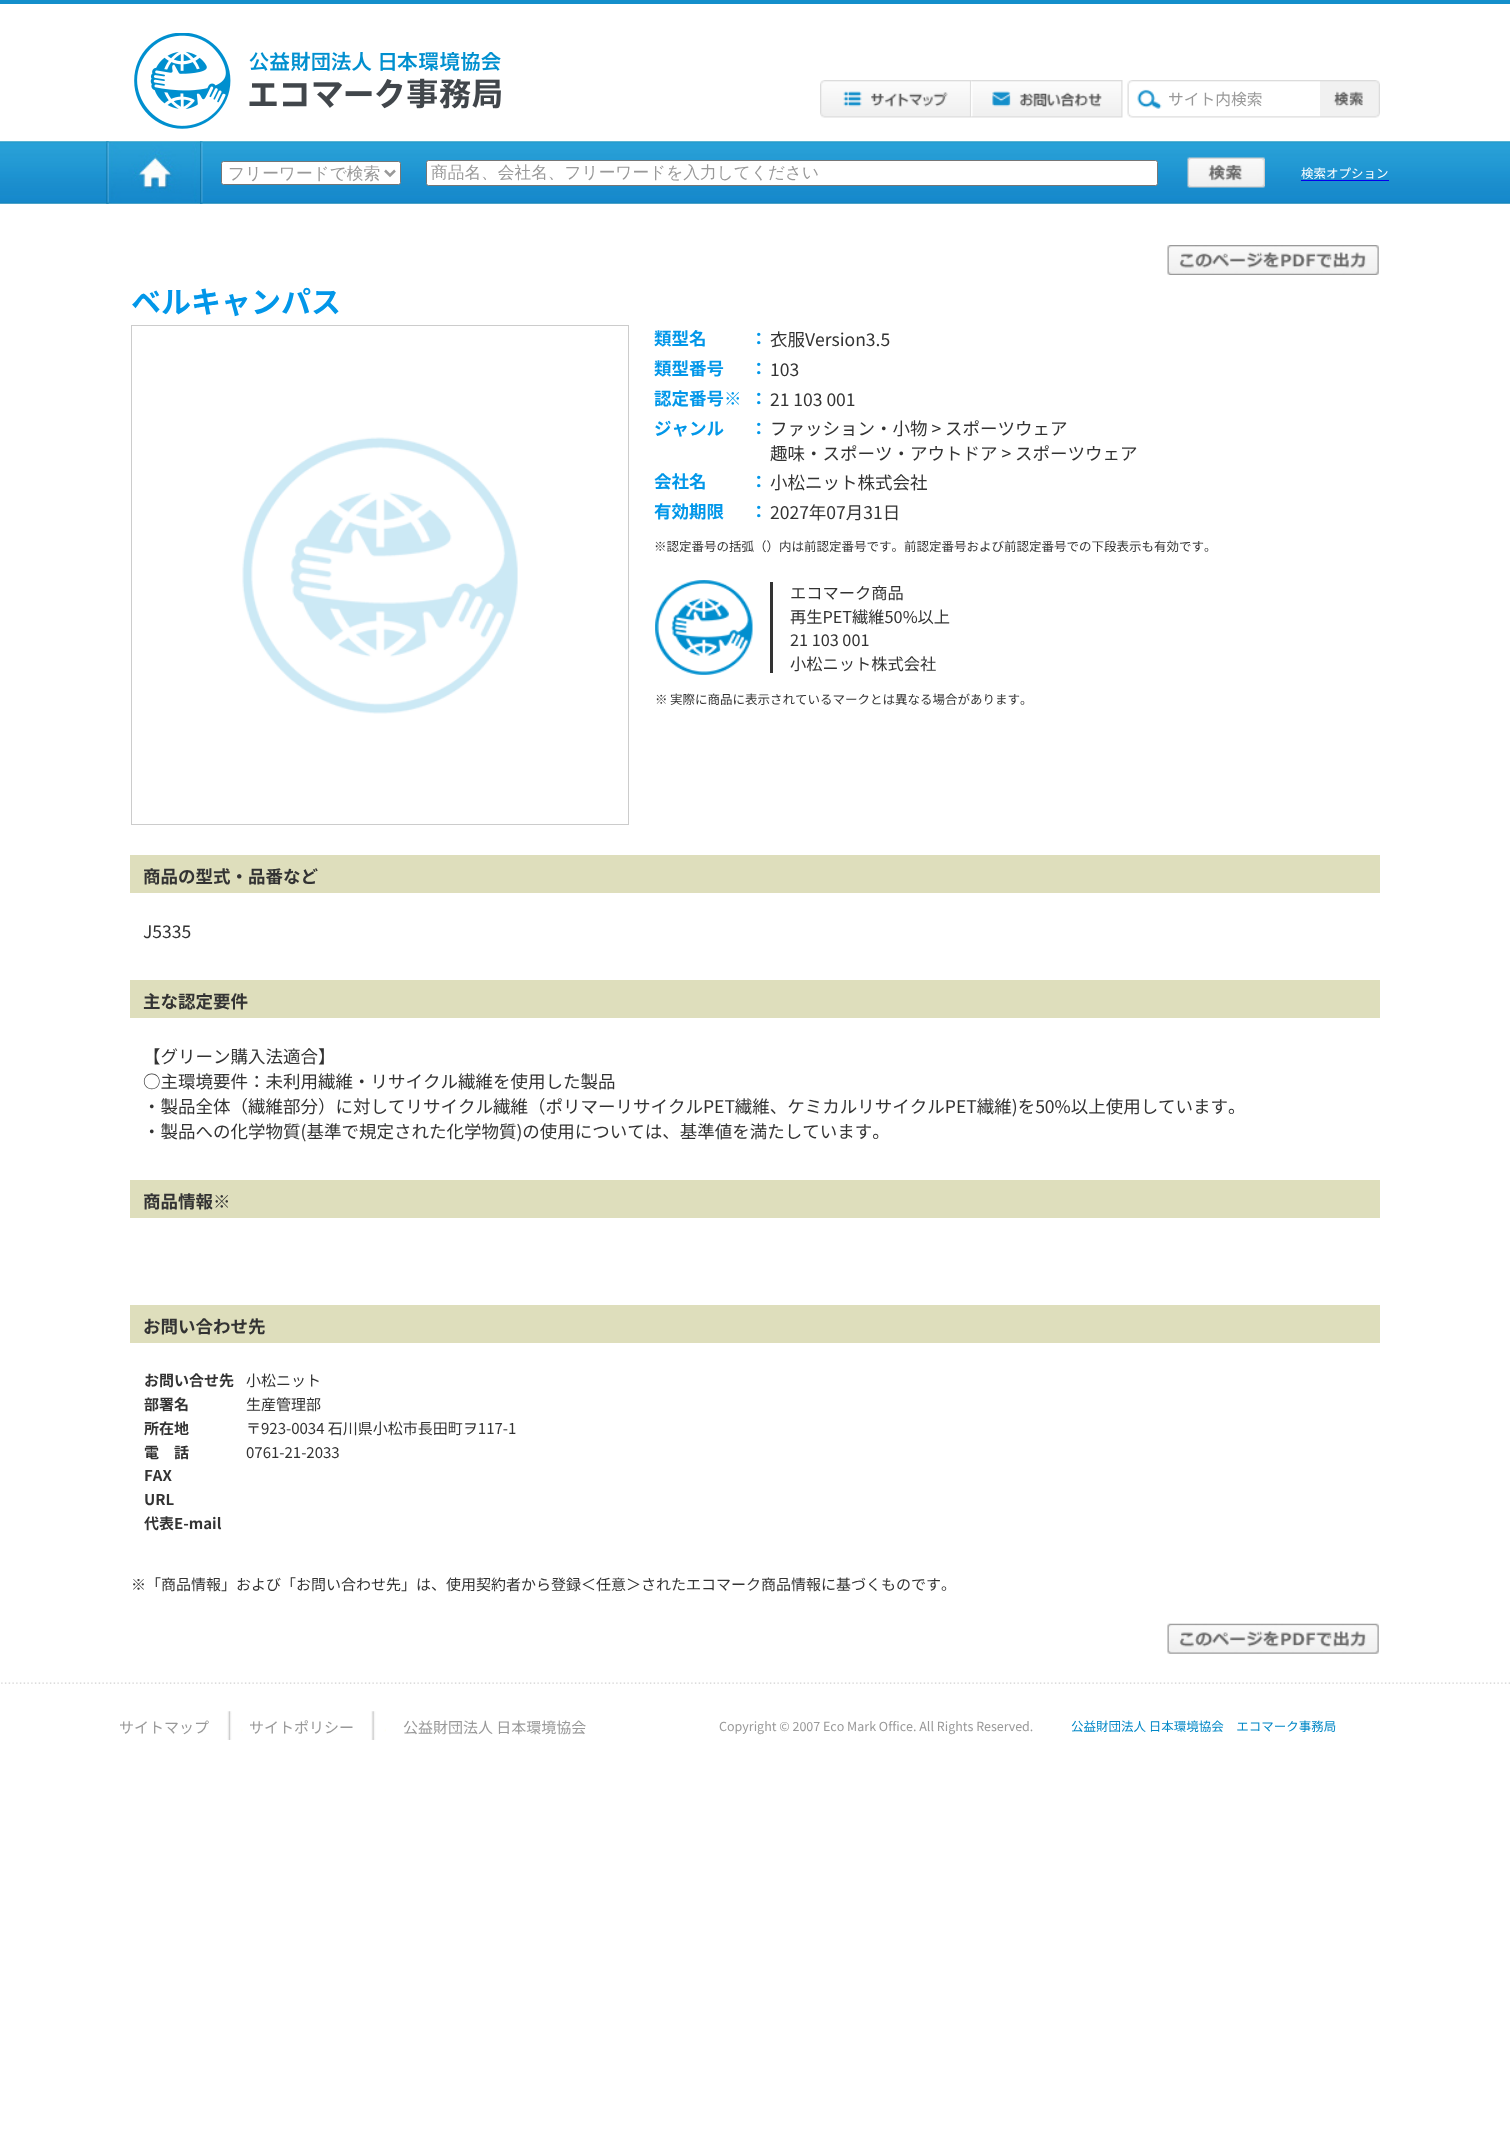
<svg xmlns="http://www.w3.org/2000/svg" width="1510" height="2151">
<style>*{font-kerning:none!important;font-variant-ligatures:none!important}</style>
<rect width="100%" height="100%" fill="#fff"/>
<rect width="1510" height="4" fill="#148fcb"/>
<image x="134" y="33" width="367" height="96" href="media/1.png"/>
<image x="820" y="80" width="152" height="38" href="media/2.png"/>
<image x="971" y="80" width="152" height="38" href="media/3.png"/>
<image x="1127" y="80" width="193" height="38" href="media/4.png"/>
<text x="1168" y="105" style="font-family:Noto Sans JP;font-size:15.75px;fill:#999">サイト内検索</text>
<image x="1320" y="80" width="60" height="38" href="media/5.png"/>
<image x="0" y="141" width="1510" height="63" href="media/6.png"/>
<image x="106" y="141" width="3" height="63" href="media/7.png"/>
<image x="111" y="142" width="86" height="61" href="media/8.png"/>
<image x="200" y="141" width="3" height="63" href="media/9.png"/>
<rect x="221.5" y="161.5" width="179" height="23" rx="2" fill="#fff" stroke="#767676"/>
<path d="M385 170.5l5 5l5-5" fill="none" stroke="#999" stroke-width="2.5"/>
<text x="228" y="179" style="font-family:WenQuanYi Zen Hei;font-size:16.7px;font-weight:500;fill:#999">フリーワードで検索</text>
<rect x="426.5" y="160.5" width="731" height="25" rx="2" fill="#fff" stroke="#767676"/>
<text x="431" y="178" style="font-family:WenQuanYi Zen Hei;font-size:16.7px;font-weight:500;fill:#999">商品名、会社名、フリーワードを入力してください</text>
<image x="1187" y="157" width="78" height="31" href="media/10.png"/>
<text x="1301" y="178" style="font-family:Noto Sans JP;font-size:12.5px;fill:#fff">検索オプション</text>
<rect x="1301" y="180" width="88" height="1" fill="#00e"/>
<image x="1167" y="245" width="212" height="30" href="media/11.png"/>
<text x="131" y="313" style="font-family:Noto Sans JP;font-size:30px;font-weight:bold;fill:#0297e9">ベルキャンパス</text>
<rect x="131.5" y="325.5" width="497" height="499" fill="none" stroke="#ccc"/>
<image x="242" y="437" width="276" height="277" href="media/12.png"/>
<text x="654" y="345" style="font-family:Noto Sans JP;font-size:17.5px;font-weight:bold;fill:#0297e9">類型名</text>
<text x="750" y="345" style="font-family:Noto Sans JP;font-size:17.5px;font-weight:bold;fill:#0297e9">：</text>
<text x="770" y="346" style="font-family:Noto Sans JP;font-size:17.5px;fill:#333">衣服Version3.5</text>
<text x="654" y="375" style="font-family:Noto Sans JP;font-size:17.5px;font-weight:bold;fill:#0297e9">類型番号</text>
<text x="750" y="375" style="font-family:Noto Sans JP;font-size:17.5px;font-weight:bold;fill:#0297e9">：</text>
<text x="770" y="376" style="font-family:Noto Sans JP;font-size:17.5px;fill:#333">103</text>
<text x="654" y="405" style="font-family:Noto Sans JP;font-size:17.5px;font-weight:bold;fill:#0297e9">認定番号※</text>
<text x="750" y="405" style="font-family:Noto Sans JP;font-size:17.5px;font-weight:bold;fill:#0297e9">：</text>
<text x="770" y="406" style="font-family:Noto Sans JP;font-size:17.5px;fill:#333">21 103 001</text>
<text x="654" y="435" style="font-family:Noto Sans JP;font-size:17.5px;font-weight:bold;fill:#0297e9">ジャンル</text>
<text x="750" y="435" style="font-family:Noto Sans JP;font-size:17.5px;font-weight:bold;fill:#0297e9">：</text>
<text x="770" y="435" style="font-family:Noto Sans JP;font-size:17.5px;fill:#333">ファッション・小物 &gt; スポーツウェア</text>
<text x="770" y="460" style="font-family:Noto Sans JP;font-size:17.5px;fill:#333">趣味・スポーツ・アウトドア &gt; スポーツウェア</text>
<text x="654" y="488" style="font-family:Noto Sans JP;font-size:17.5px;font-weight:bold;fill:#0297e9">会社名</text>
<text x="750" y="488" style="font-family:Noto Sans JP;font-size:17.5px;font-weight:bold;fill:#0297e9">：</text>
<text x="770" y="489" style="font-family:Noto Sans JP;font-size:17.5px;fill:#333">小松ニット株式会社</text>
<text x="654" y="518" style="font-family:Noto Sans JP;font-size:17.5px;font-weight:bold;fill:#0297e9">有効期限</text>
<text x="750" y="518" style="font-family:Noto Sans JP;font-size:17.5px;font-weight:bold;fill:#0297e9">：</text>
<text x="770" y="519" style="font-family:Noto Sans JP;font-size:17.5px;fill:#333">2027年07月31日</text>
<text x="654" y="551" style="font-family:Noto Sans JP;font-size:12.5px;fill:#333">※認定番号の括弧（）内は前認定番号です。前認定番号および前認定番号での下段表示も有効です。</text>
<image x="655" y="580" width="98" height="95" href="media/13.png"/>
<rect x="770" y="582" width="3" height="91" fill="#333"/>
<text x="790" y="599" style="font-family:Noto Sans JP;font-size:16.25px;fill:#333">エコマーク商品</text>
<text x="790" y="623" style="font-family:Noto Sans JP;font-size:16.25px;fill:#333">再生PET繊維50%以上</text>
<text x="790" y="646" style="font-family:Noto Sans JP;font-size:16.25px;fill:#333">21 103 001</text>
<text x="790" y="670" style="font-family:Noto Sans JP;font-size:16.25px;fill:#333">小松ニット株式会社</text>
<text x="655" y="704" style="font-family:Noto Sans JP;font-size:12.5px;fill:#333">※</text>
<text x="670" y="704" style="font-family:Noto Sans JP;font-size:12.5px;fill:#333">実際に商品に表示されているマークとは異なる場合があります。</text>
<rect x="130" y="855" width="1250" height="38" fill="#dedebc"/>
<text x="143" y="883" style="font-family:Noto Sans JP;font-size:17.5px;font-weight:bold;fill:#333">商品の型式・品番など</text>
<text x="143" y="938" style="font-family:Noto Sans JP;font-size:17.5px;fill:#333">J5335</text>
<rect x="130" y="980" width="1250" height="38" fill="#dedebc"/>
<text x="143" y="1008" style="font-family:Noto Sans JP;font-size:17.5px;font-weight:bold;fill:#333">主な認定要件</text>
<text x="143" y="1063" style="font-family:Noto Sans JP;font-size:17.5px;fill:#333">【グリーン購入法適合】</text>
<text x="143" y="1088" style="font-family:Noto Sans JP;font-size:17.5px;fill:#333">○主環境要件：未利用繊維・リサイクル繊維を使用した製品</text>
<text x="143" y="1113" style="font-family:Noto Sans JP;font-size:17.5px;fill:#333">・製品全体（繊維部分）に対してリサイクル繊維（ポリマーリサイクルPET繊維、ケミカルリサイクルPET繊維)を50%以上使用し</text>
<text x="1158" y="1113" style="font-family:Noto Sans JP;font-size:17.5px;fill:#333">ています。</text>
<text x="143" y="1138" style="font-family:Noto Sans JP;font-size:17.5px;fill:#333">・製品への化学物質(基準で規定された化学物質)の使用については、基準値を満たしています。</text>
<rect x="130" y="1180" width="1250" height="38" fill="#dedebc"/>
<text x="143" y="1208" style="font-family:Noto Sans JP;font-size:17.5px;font-weight:bold;fill:#333">商品情報※</text>
<rect x="130" y="1305" width="1250" height="38" fill="#dedebc"/>
<text x="143" y="1333" style="font-family:Noto Sans JP;font-size:17.5px;font-weight:bold;fill:#333">お問い合わせ先</text>
<text x="144" y="1386" style="font-family:Noto Sans JP;font-size:15px;font-weight:bold;fill:#333">お問い合せ先</text>
<text x="246" y="1386" style="font-family:Noto Sans JP;font-size:15px;fill:#333">小松ニット</text>
<text x="144" y="1410" style="font-family:Noto Sans JP;font-size:15px;font-weight:bold;fill:#333">部署名</text>
<text x="246" y="1410" style="font-family:Noto Sans JP;font-size:15px;fill:#333">生産管理部</text>
<text x="144" y="1434" style="font-family:Noto Sans JP;font-size:15px;font-weight:bold;fill:#333">所在地</text>
<text x="246" y="1434" style="font-family:Noto Sans JP;font-size:15px;fill:#333">〒923-0034 石川県小松市長田町ヲ117-1</text>
<text x="144" y="1458" style="font-family:Noto Sans JP;font-size:15px;font-weight:bold;fill:#333">電　話</text>
<text x="246" y="1458" style="font-family:Noto Sans JP;font-size:15px;fill:#333">0761-21-2033</text>
<text x="144" y="1481" style="font-family:Noto Sans JP;font-size:15px;font-weight:bold;fill:#333">FAX</text>
<text x="144" y="1505" style="font-family:Noto Sans JP;font-size:15px;font-weight:bold;fill:#333">URL</text>
<text x="144" y="1529" style="font-family:Noto Sans JP;font-size:15px;font-weight:bold;fill:#333">代表E-mail</text>
<text x="131" y="1590" style="font-family:Noto Sans JP;font-size:15px;fill:#333">※「商品情報」および「お問い合わせ先」は、使用契約者から登録＜任意＞されたエコマーク商品情報に基づくものです。</text>
<image x="1167" y="1623" width="212" height="31" href="media/14.png"/>
<image x="1" y="1682" width="1509" height="2" href="media/15.png"/>
<text x="119" y="1733" style="font-family:Noto Sans JP;font-size:15px;fill:#999">サイトマップ</text>
<image x="227" y="1711" width="16" height="29" href="media/16.png"/>
<text x="249" y="1733" style="font-family:Noto Sans JP;font-size:15px;fill:#999">サイトポリシー</text>
<image x="371" y="1711" width="15" height="29" href="media/17.png"/>
<text x="403" y="1733" style="font-family:Noto Sans JP;font-size:15px;fill:#999">公益財団法人 日本環境協会</text>
<text x="719" y="1731" style="font-family:Noto Sans JP;font-size:12.5px;fill:#999">Copyright © 2007 Eco Mark Office. All Rights Reserved.</text>
<text x="1071" y="1731" style="font-family:Noto Sans JP;font-size:12.5px;fill:#0087c6">公益財団法人 日本環境協会　エコマーク事務局</text>
</svg>
